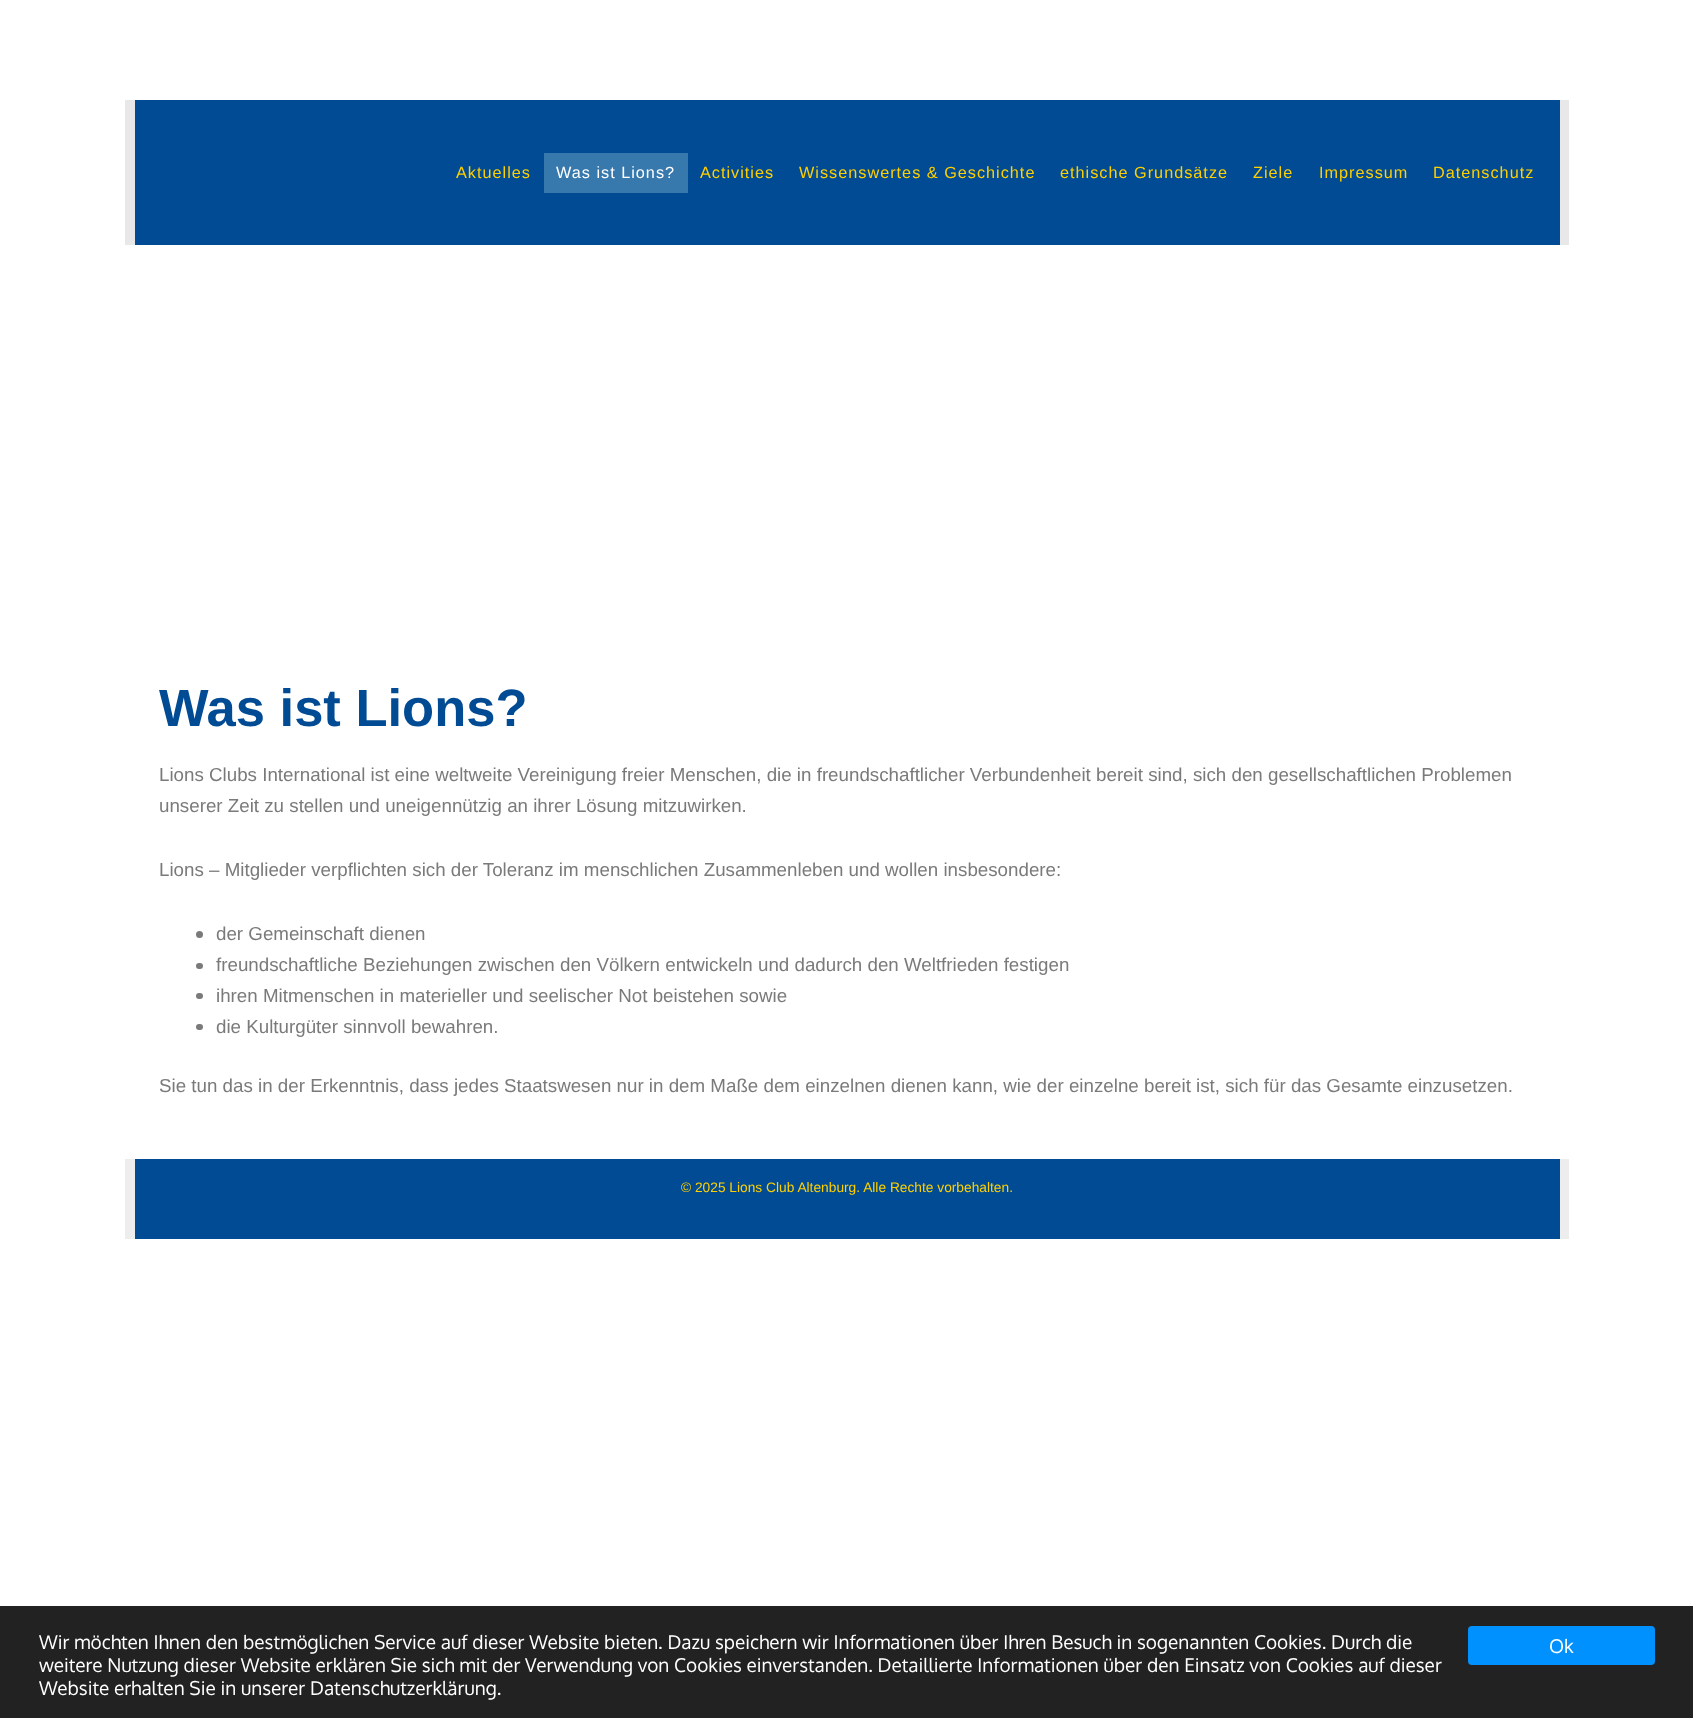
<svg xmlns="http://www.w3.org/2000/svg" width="1693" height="1718">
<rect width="100%" height="100%" fill="#fff"/>
<rect x="125" y="100" width="1444" height="145" fill="#e8e8e8"/>
<rect x="135" y="100" width="1425" height="145" fill="#004b93"/>
<text x="456" y="178" style="font-family:Liberation Sans;font-size:16.25px;letter-spacing:1px;fill:#ffd000">Aktuelles</text>
<rect x="544" y="153" width="144" height="40" fill="#3778ad"/>
<text x="556" y="178" style="font-family:Liberation Sans;font-size:16.25px;letter-spacing:1px;fill:#fff">Was ist Lions?</text>
<text x="700" y="178" style="font-family:Liberation Sans;font-size:16.25px;letter-spacing:1px;fill:#ffd000">Activities</text>
<text x="799" y="178" style="font-family:Liberation Sans;font-size:16.25px;letter-spacing:1px;fill:#ffd000">Wissenswertes &amp; Geschichte</text>
<text x="1060" y="178" style="font-family:Liberation Sans;font-size:16.25px;letter-spacing:1px;fill:#ffd000">ethische Grundsätze</text>
<text x="1253" y="178" style="font-family:Liberation Sans;font-size:16.25px;letter-spacing:1px;fill:#ffd000">Ziele</text>
<text x="1319" y="178" style="font-family:Liberation Sans;font-size:16.25px;letter-spacing:1px;fill:#ffd000">Impressum</text>
<text x="1433" y="178" style="font-family:Liberation Sans;font-size:16.25px;letter-spacing:1px;fill:#ffd000">Datenschutz</text>
<text x="159" y="726" style="font-family:Liberation Sans;font-size:52.5px;font-weight:bold;fill:#004b93">Was ist Lions?</text>
<text x="159" y="781" style="font-family:Liberation Sans;font-size:18.75px;fill:#7a7a7a">Lions Clubs International ist eine weltweite Vereinigung freier Menschen, die in freundschaftlicher Verbundenheit bereit sind, sich den gesellschaftlichen Problemen</text>
<text x="159" y="812" style="font-family:Liberation Sans;font-size:18.75px;fill:#7a7a7a">unserer Zeit zu stellen und uneigennützig an ihrer Lösung mitzuwirken.</text>
<text x="159" y="876" style="font-family:Liberation Sans;font-size:18.75px;fill:#7a7a7a">Lions – Mitglieder verpflichten sich der Toleranz im menschlichen Zusammenleben und wollen insbesondere:</text>
<circle cx="199.5" cy="934.5" r="3.5" fill="#7a7a7a"/>
<text x="216" y="940" style="font-family:Liberation Sans;font-size:18.75px;fill:#7a7a7a">der Gemeinschaft dienen</text>
<rect x="196" y="963" width="7" height="6" rx="3" fill="#7a7a7a"/>
<text x="216" y="971" style="font-family:Liberation Sans;font-size:18.75px;fill:#7a7a7a">freundschaftliche Beziehungen zwischen den Völkern entwickeln und dadurch den Weltfrieden festigen</text>
<rect x="196" y="993" width="7" height="6" rx="3" fill="#7a7a7a"/>
<text x="216" y="1002" style="font-family:Liberation Sans;font-size:18.75px;fill:#7a7a7a">ihren Mitmenschen in materieller und seelischer Not beistehen sowie</text>
<rect x="196" y="1024" width="7" height="6" rx="3" fill="#7a7a7a"/>
<text x="216" y="1033" style="font-family:Liberation Sans;font-size:18.75px;fill:#7a7a7a">die Kulturgüter sinnvoll bewahren.</text>
<text x="159" y="1092" style="font-family:Liberation Sans;font-size:18.75px;fill:#7a7a7a">Sie tun das in der Erkenntnis, dass jedes Staatswesen nur in dem Maße dem einzelnen dienen kann, wie der einzelne bereit ist, sich für das Gesamte einzusetzen.</text>
<rect x="125" y="1159" width="1444" height="80" fill="#ededed"/>
<rect x="135" y="1159" width="1425" height="80" fill="#004b93"/>
<text x="681" y="1192" style="font-family:Liberation Sans;font-size:13.75px;fill:#ffd000">© 2025 Lions Club Altenburg. Alle Rechte vorbehalten.</text>
<rect y="1606" width="1693" height="112" fill="#222"/>
<text x="39" y="1649" style="font-family:Oxygen;font-size:19px;fill:#fff">Wir möchten Ihnen den bestmöglichen Service auf dieser Website bieten. Dazu speichern wir Informationen über Ihren Besuch in sogenannten Cookies. Durch die</text>
<text x="39" y="1672" style="font-family:Oxygen;font-size:19px;fill:#fff">weitere Nutzung dieser Website erklären Sie sich mit der Verwendung von Cookies einverstanden. Detaillierte Informationen über den Einsatz von Cookies auf dieser</text>
<text x="39" y="1695" style="font-family:Oxygen;font-size:19px;fill:#fff">Website erhalten Sie in unserer Datenschutzerklärung.</text>
<rect x="1468" y="1626" width="187" height="39" rx="4" fill="#0091ff"/>
<text x="1549" y="1653" style="font-family:Oxygen;font-size:19px;fill:#fff">Ok</text>
</svg>
